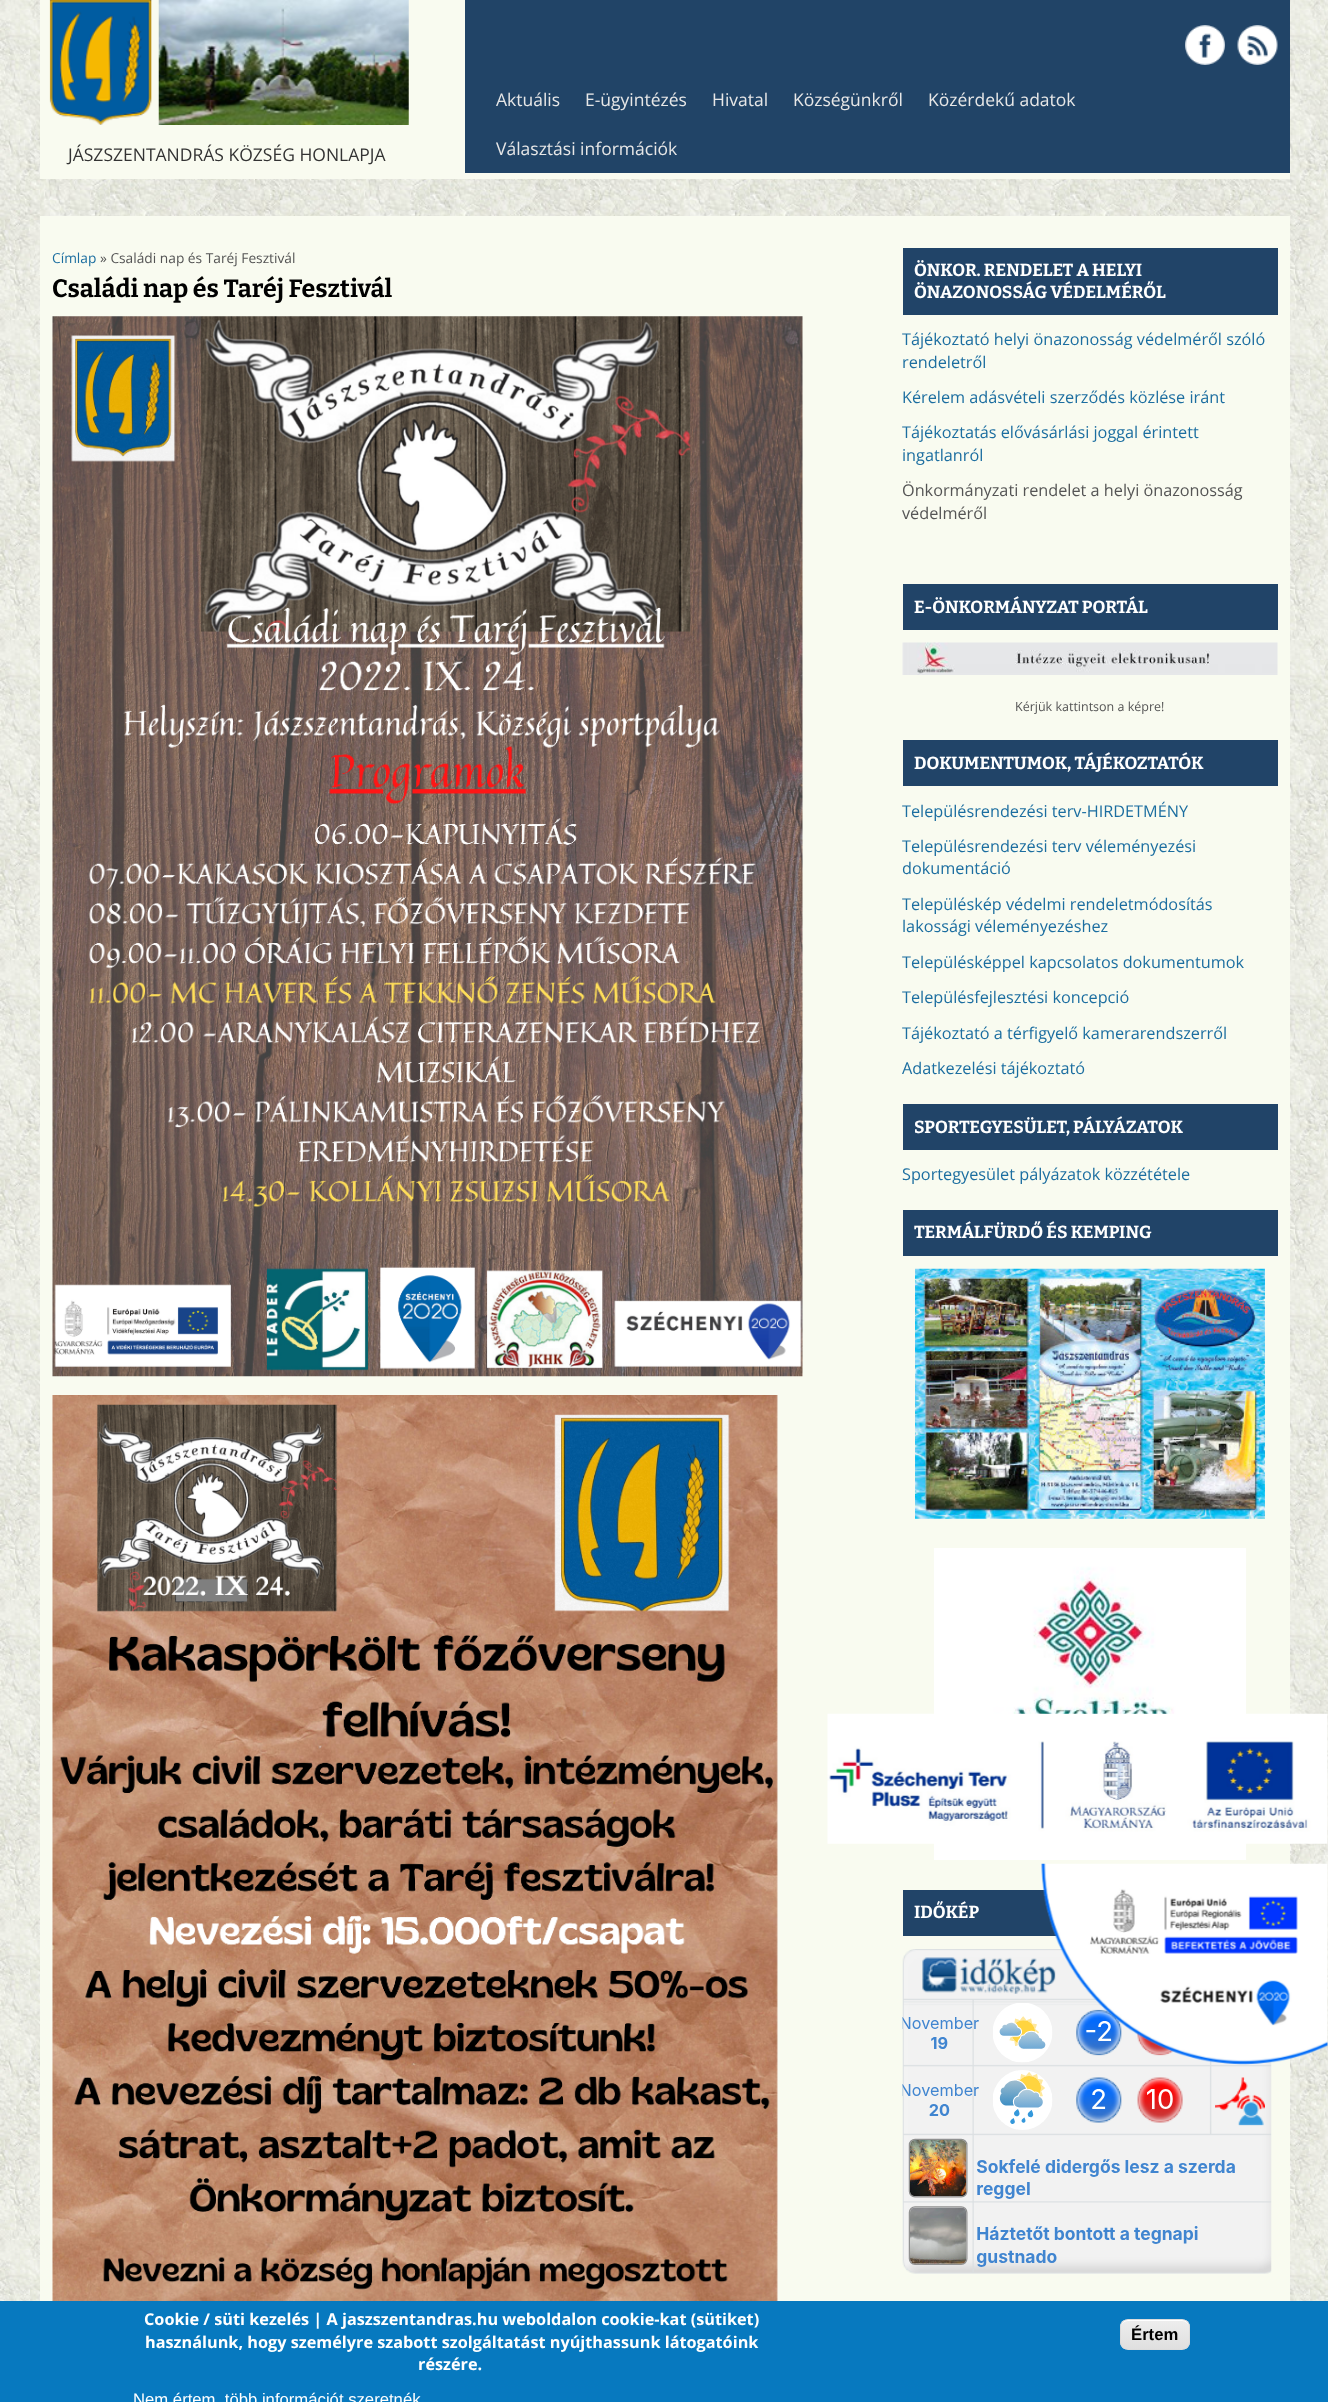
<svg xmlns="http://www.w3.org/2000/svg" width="1328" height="2402">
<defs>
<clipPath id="clip1"><rect x="1120" y="2319" width="70" height="31" rx="8"/></clipPath>
<linearGradient id="g1" gradientUnits="userSpaceOnUse" x1="1155" y1="2320" x2="1155" y2="2349"><stop offset="0.05" stop-color="#ededed"/><stop offset="1" stop-color="#dfdfdf"/></linearGradient>
</defs>
<rect width="100%" height="100%" fill="#fff"/>
<image x="0" y="0" width="1328" height="2301" href="media/1.png"/>
<rect x="40" width="1250" height="179" fill="#f9fbf0"/>
<image x="49" y="0" width="360" height="125" href="media/2.png"/>
<text x="68" y="161" style="font-family:Open Sans;font-size:17.5px;fill:#333">JÁSZSZENTANDRÁS KÖZSÉG HONLAPJA</text>
<rect x="465" width="825" height="173" fill="#214467"/>
<image x="1185" y="25" width="40" height="40" href="media/3.png"/>
<image x="1237" y="25" width="41" height="40" href="media/4.png"/>
<text x="496" y="106" style="font-family:Open Sans;font-size:17.5px;fill:#e7e7e7">Aktuális</text>
<text x="585" y="106" style="font-family:Open Sans;font-size:17.5px;fill:#e7e7e7">E-ügyintézés</text>
<text x="712" y="106" style="font-family:Open Sans;font-size:17.5px;fill:#e7e7e7">Hivatal</text>
<text x="793" y="106" style="font-family:Open Sans;font-size:17.5px;fill:#e7e7e7">Községünkről</text>
<text x="928" y="106" style="font-family:Open Sans;font-size:17.5px;fill:#e7e7e7">Közérdekű adatok</text>
<text x="496" y="155" style="font-family:Open Sans;font-size:17.5px;fill:#e7e7e7">Választási információk</text>
<rect x="40" y="216" width="1250" height="2085" fill="#f9fbf0"/>
<text x="52" y="263" style="font-family:Open Sans;font-size:13.75px;fill:#1c6ea0">Címlap</text>
<text x="100" y="263" style="font-family:Open Sans;font-size:13.75px;fill:#555">» Családi nap és Taréj Fesztivál</text>
<text x="52" y="297" style="font-family:Bitter;font-size:25px;font-weight:bold;fill:#000">Családi nap és Taréj Fesztivál</text>
<image x="52" y="316" width="751" height="1061" href="media/5.png"/>
<image x="52" y="1395" width="726" height="906" href="media/6.png"/>
<rect x="903" y="248" width="375" height="67" fill="#214468"/>
<text x="914" y="276" style="font-family:Bitter;font-size:17.5px;font-weight:bold;fill:#fff">ÖNKOR. RENDELET A HELYI</text>
<text x="914" y="298" style="font-family:Bitter;font-size:17.5px;font-weight:bold;fill:#fff">ÖNAZONOSSÁG VÉDELMÉRŐL</text>
<text x="902" y="345" style="font-family:Open Sans;font-size:16.25px;fill:#1c6ea0">Tájékoztató helyi önazonosság védelméről szóló</text>
<text x="902" y="368" style="font-family:Open Sans;font-size:16.25px;fill:#1c6ea0">rendeletről</text>
<text x="902" y="403" style="font-family:Open Sans;font-size:16.25px;fill:#1c6ea0">Kérelem adásvételi szerződés közlése iránt</text>
<text x="902" y="438" style="font-family:Open Sans;font-size:16.25px;fill:#1c6ea0">Tájékoztatás elővásárlási joggal érintett</text>
<text x="902" y="461" style="font-family:Open Sans;font-size:16.25px;fill:#1c6ea0">ingatlanról</text>
<text x="902" y="496" style="font-family:Open Sans;font-size:16.25px;fill:#555">Önkormányzati rendelet a helyi önazonosság</text>
<text x="902" y="519" style="font-family:Open Sans;font-size:16.25px;fill:#555">védelméről</text>
<rect x="903" y="584" width="375" height="46" fill="#214468"/>
<text x="914" y="613" style="font-family:Bitter;font-size:17.5px;font-weight:bold;fill:#fff">E-ÖNKORMÁNYZAT PORTÁL</text>
<image x="902" y="642" width="376" height="33" href="media/7.png"/>
<text x="1015" y="711" style="font-family:Open Sans;font-size:12.5px;fill:#555">Kérjük kattintson a képre!</text>
<rect x="903" y="740" width="375" height="46" fill="#214468"/>
<text x="914" y="769" style="font-family:Bitter;font-size:17.5px;font-weight:bold;fill:#fff">DOKUMENTUMOK, TÁJÉKOZTATÓK</text>
<text x="902" y="817" style="font-family:Open Sans;font-size:16.25px;fill:#1c6ea0">Településrendezési terv-HIRDETMÉNY</text>
<text x="902" y="852" style="font-family:Open Sans;font-size:16.25px;fill:#1c6ea0">Településrendezési terv véleményezési</text>
<text x="902" y="874" style="font-family:Open Sans;font-size:16.25px;fill:#1c6ea0">dokumentáció</text>
<text x="902" y="910" style="font-family:Open Sans;font-size:16.25px;fill:#1c6ea0">Településkép védelmi rendeletmódosítás</text>
<text x="902" y="932" style="font-family:Open Sans;font-size:16.25px;fill:#1c6ea0">lakossági véleményezéshez</text>
<text x="902" y="968" style="font-family:Open Sans;font-size:16.25px;fill:#1c6ea0">Településképpel kapcsolatos dokumentumok</text>
<text x="902" y="1003" style="font-family:Open Sans;font-size:16.25px;fill:#1c6ea0">Településfejlesztési koncepció</text>
<text x="902" y="1039" style="font-family:Open Sans;font-size:16.25px;fill:#1c6ea0">Tájékoztató a térfigyelő kamerarendszerről</text>
<text x="902" y="1074" style="font-family:Open Sans;font-size:16.25px;fill:#1c6ea0">Adatkezelési tájékoztató</text>
<rect x="903" y="1104" width="375" height="46" fill="#214468"/>
<text x="914" y="1133" style="font-family:Bitter;font-size:17.5px;font-weight:bold;fill:#fff">SPORTEGYESÜLET, PÁLYÁZATOK</text>
<text x="902" y="1180" style="font-family:Open Sans;font-size:16.25px;fill:#1c6ea0">Sportegyesület pályázatok közzététele</text>
<rect x="903" y="1210" width="375" height="46" fill="#214468"/>
<text x="914" y="1238" style="font-family:Bitter;font-size:17.5px;font-weight:bold;fill:#fff">TERMÁLFÜRDŐ ÉS KEMPING</text>
<image x="915" y="1268" width="350" height="251" href="media/8.png"/>
<image x="933" y="1548" width="314" height="312" href="media/9.png"/>
<rect x="903" y="1890" width="154" height="46" fill="#214468"/>
<text x="914" y="1918" style="font-family:Bitter;font-size:17.5px;font-weight:bold;fill:#fff">IDŐKÉP</text>
<image x="902" y="1949" width="370" height="325" href="media/10.png"/>
<image x="827" y="1713" width="501" height="131" href="media/11.png"/>
<image x="1041" y="1863" width="287" height="202" href="media/12.png"/>
<rect y="2301" width="1328" height="101" fill="#0779bf"/>
<text x="144" y="2325" style="font-family:Open Sans;font-size:16.25px;font-weight:bold;fill:#fff">Cookie / süti kezelés | A jaszszentandras.hu weboldalon cookie-kat (sütiket)</text>
<text x="145" y="2348" style="font-family:Open Sans;font-size:16.25px;font-weight:bold;fill:#fff">használunk, hogy személyre szabott szolgáltatást nyújthassunk látogatóink</text>
<text x="418" y="2370" style="font-family:Open Sans;font-size:16.25px;font-weight:bold;fill:#fff">részére.</text>
<text x="133" y="2405" style="font-family:Liberation Sans;font-size:16.7px;fill:#fff">Nem értem, több információt szeretnék</text>
<g clip-path="url(#clip1)">
<rect x="1120" y="2320" width="70" height="29" fill="url(#g1)"/>
</g>
<path d="M1128 2321h54c4 0 7 3 7 7c0-10-7-8-15-8h-38c-8 0-15-2-15 8c0-4 3-7 7-7z" fill="#fff"/>
<rect x="1120.5" y="2319.5" width="69" height="30" rx="7.5" fill="none" stroke="#dcdcdc"/>
<text x="1131" y="2340" style="font-family:Liberation Sans;font-size:16.7px;font-weight:bold;fill:#000">Értem</text>
</svg>
